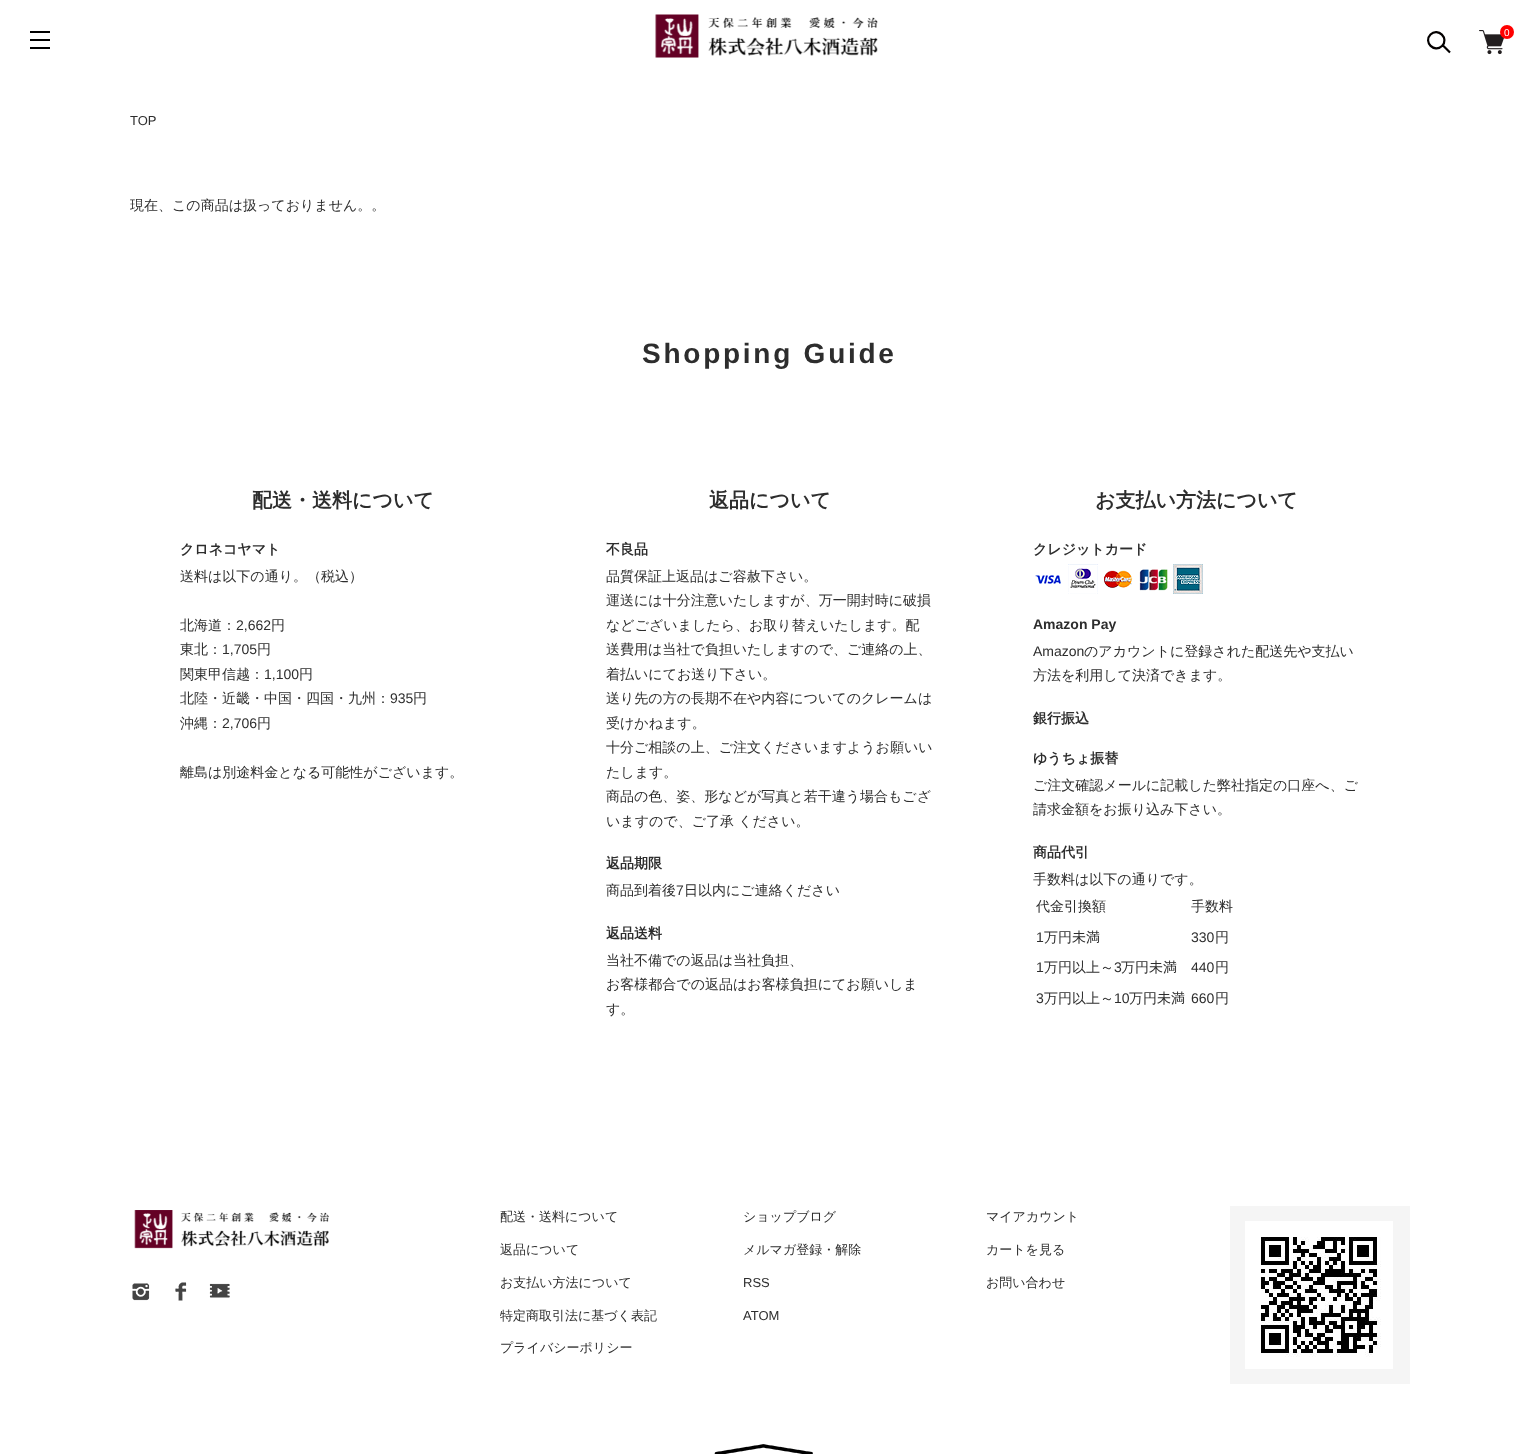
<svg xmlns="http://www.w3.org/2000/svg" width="1539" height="1454">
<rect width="100%" height="100%" fill="#fff"/>
<rect x="30" y="31" width="20" height="2" fill="#000"/>
<rect x="30" y="39" width="20" height="2" fill="#000"/>
<rect x="30" y="47" width="20" height="2" fill="#000"/>
<image x="655" y="14" width="223" height="44" href="media/1.png"/>
<path d="M1430.5 34.5c7.5-7.5 19 4 11.5 11.5c-7.5 7.5-19-4-11.5-11.5zm11.5 10l8 8" fill="none" stroke="#030000" stroke-width="2.2"/>
<image x="1479" y="30" width="25" height="25" href="media/2.png"/>
<circle cx="1507" cy="32" r="7" fill="#f00"/>
<text x="1504" y="36" style="font-family:Liberation Sans;font-size:10px;fill:#fff">0</text>
<text x="130" y="125" style="font-family:Liberation Sans;font-size:13px;fill:#2d2d2d">TOP</text>
<text x="130" y="210" style="font-family:WenQuanYi Zen Hei;font-size:14px;font-weight:500;fill:#2d2d2d">現在、この商品は扱っておりません。。</text>
<text x="642" y="363" style="font-family:Liberation Sans;font-size:28px;font-weight:bold;letter-spacing:2.75px;fill:#2d2d2d">Shopping Guide</text>
<text x="252" y="507" style="font-family:WenQuanYi Zen Hei;font-size:20px;font-weight:bold;fill:#2d2d2d">配送・送料について</text>
<text x="180" y="554" style="font-family:WenQuanYi Zen Hei;font-size:14px;font-weight:bold;fill:#2d2d2d">クロネコヤマト</text>
<text x="180" y="581" style="font-family:WenQuanYi Zen Hei;font-size:14px;font-weight:500;fill:#2d2d2d">送料は以下の通り。（税込）</text>
<text x="180" y="630" style="font-family:WenQuanYi Zen Hei;font-size:14px;font-weight:500;fill:#2d2d2d">北海道：</text>
<text x="236" y="630" style="font-family:Liberation Sans;font-size:14px;fill:#2d2d2d">2,662</text>
<text x="271" y="630" style="font-family:WenQuanYi Zen Hei;font-size:14px;font-weight:500;fill:#2d2d2d">円</text>
<text x="180" y="654" style="font-family:WenQuanYi Zen Hei;font-size:14px;font-weight:500;fill:#2d2d2d">東北：</text>
<text x="222" y="654" style="font-family:Liberation Sans;font-size:14px;fill:#2d2d2d">1,705</text>
<text x="257" y="654" style="font-family:WenQuanYi Zen Hei;font-size:14px;font-weight:500;fill:#2d2d2d">円</text>
<text x="180" y="679" style="font-family:WenQuanYi Zen Hei;font-size:14px;font-weight:500;fill:#2d2d2d">関東甲信越：</text>
<text x="264" y="679" style="font-family:Liberation Sans;font-size:14px;fill:#2d2d2d">1,100</text>
<text x="299" y="679" style="font-family:WenQuanYi Zen Hei;font-size:14px;font-weight:500;fill:#2d2d2d">円</text>
<text x="180" y="703" style="font-family:WenQuanYi Zen Hei;font-size:14px;font-weight:500;fill:#2d2d2d">北陸・近畿・中国・四国・九州：</text>
<text x="390" y="703" style="font-family:Liberation Sans;font-size:14px;fill:#2d2d2d">935</text>
<text x="413" y="703" style="font-family:WenQuanYi Zen Hei;font-size:14px;font-weight:500;fill:#2d2d2d">円</text>
<text x="180" y="728" style="font-family:WenQuanYi Zen Hei;font-size:14px;font-weight:500;fill:#2d2d2d">沖縄：</text>
<text x="222" y="728" style="font-family:Liberation Sans;font-size:14px;fill:#2d2d2d">2,706</text>
<text x="257" y="728" style="font-family:WenQuanYi Zen Hei;font-size:14px;font-weight:500;fill:#2d2d2d">円</text>
<text x="180" y="777" style="font-family:WenQuanYi Zen Hei;font-size:14px;font-weight:500;fill:#2d2d2d">離島は別途料金となる可能性がございます。</text>
<text x="709" y="507" style="font-family:WenQuanYi Zen Hei;font-size:20px;font-weight:bold;fill:#2d2d2d">返品について</text>
<text x="606" y="554" style="font-family:WenQuanYi Zen Hei;font-size:14px;font-weight:bold;fill:#2d2d2d">不良品</text>
<text x="606" y="581" style="font-family:WenQuanYi Zen Hei;font-size:14px;font-weight:500;fill:#2d2d2d">品質保証上返品はご容赦下さい。</text>
<text x="606" y="605" style="font-family:WenQuanYi Zen Hei;font-size:14px;font-weight:500;fill:#2d2d2d">運送には十分注意いたしますが、万一開封時に破損</text>
<text x="606" y="630" style="font-family:WenQuanYi Zen Hei;font-size:14px;font-weight:500;fill:#2d2d2d">などございましたら、お取り替えいたします。配</text>
<text x="606" y="654" style="font-family:WenQuanYi Zen Hei;font-size:14px;font-weight:500;fill:#2d2d2d">送費用は当社で負担いたしますので、ご連絡の上、</text>
<text x="606" y="679" style="font-family:WenQuanYi Zen Hei;font-size:14px;font-weight:500;fill:#2d2d2d">着払いにてお送り下さい。</text>
<text x="606" y="703" style="font-family:WenQuanYi Zen Hei;font-size:14px;font-weight:500;fill:#2d2d2d">送り先の方の長期不在や内容についてのクレームは</text>
<text x="606" y="728" style="font-family:WenQuanYi Zen Hei;font-size:14px;font-weight:500;fill:#2d2d2d">受けかねます。</text>
<text x="606" y="752" style="font-family:WenQuanYi Zen Hei;font-size:14px;font-weight:500;fill:#2d2d2d">十分ご相談の上、ご注文くださいますようお願いい</text>
<text x="606" y="777" style="font-family:WenQuanYi Zen Hei;font-size:14px;font-weight:500;fill:#2d2d2d">たします。</text>
<text x="606" y="801" style="font-family:WenQuanYi Zen Hei;font-size:14px;font-weight:500;fill:#2d2d2d">商品の色、姿、形などが写真と若干違う場合もござ</text>
<text x="606" y="826" style="font-family:WenQuanYi Zen Hei;font-size:14px;font-weight:500;fill:#2d2d2d">いますので、ご了承 ください。</text>
<text x="606" y="868" style="font-family:WenQuanYi Zen Hei;font-size:14px;font-weight:bold;fill:#2d2d2d">返品期限</text>
<text x="606" y="895" style="font-family:WenQuanYi Zen Hei;font-size:14px;font-weight:500;fill:#2d2d2d">商品到着後</text>
<text x="676" y="895" style="font-family:Liberation Sans;font-size:14px;fill:#2d2d2d">7</text>
<text x="684" y="895" style="font-family:WenQuanYi Zen Hei;font-size:14px;font-weight:500;fill:#2d2d2d">日以内にご連絡ください</text>
<text x="606" y="938" style="font-family:WenQuanYi Zen Hei;font-size:14px;font-weight:bold;fill:#2d2d2d">返品送料</text>
<text x="606" y="965" style="font-family:WenQuanYi Zen Hei;font-size:14px;font-weight:500;fill:#2d2d2d">当社不備での返品は当社負担、</text>
<text x="606" y="989" style="font-family:WenQuanYi Zen Hei;font-size:14px;font-weight:500;fill:#2d2d2d">お客様都合での返品はお客様負担にてお願いしま</text>
<text x="606" y="1014" style="font-family:WenQuanYi Zen Hei;font-size:14px;font-weight:500;fill:#2d2d2d">す。</text>
<text x="1095" y="507" style="font-family:WenQuanYi Zen Hei;font-size:20px;font-weight:bold;fill:#2d2d2d">お支払い方法について</text>
<text x="1033" y="554" style="font-family:WenQuanYi Zen Hei;font-size:14px;font-weight:bold;fill:#2d2d2d">クレジットカード</text>
<image x="1035" y="575" width="26" height="9" href="media/3.png"/>
<image x="1068" y="564" width="30" height="30" href="media/4.png"/>
<image x="1104" y="570" width="29" height="18" href="media/5.png"/>
<image x="1139" y="569" width="29" height="22" href="media/6.png"/>
<image x="1173" y="564" width="30" height="30" href="media/7.png"/>
<text x="1033" y="629" style="font-family:Liberation Sans;font-size:14px;font-weight:bold;fill:#2d2d2d">Amazon Pay</text>
<text x="1033" y="656" style="font-family:Liberation Sans;font-size:14px;fill:#2d2d2d">Amazon</text>
<text x="1084" y="656" style="font-family:WenQuanYi Zen Hei;font-size:14px;font-weight:500;fill:#2d2d2d">のアカウントに登録された配送先や支払い</text>
<text x="1033" y="680" style="font-family:WenQuanYi Zen Hei;font-size:14px;font-weight:500;fill:#2d2d2d">方法を利用して決済できます。</text>
<text x="1033" y="723" style="font-family:WenQuanYi Zen Hei;font-size:14px;font-weight:bold;fill:#2d2d2d">銀行振込</text>
<text x="1033" y="763" style="font-family:WenQuanYi Zen Hei;font-size:14px;font-weight:bold;fill:#2d2d2d">ゆうちょ振替</text>
<text x="1033" y="790" style="font-family:WenQuanYi Zen Hei;font-size:14px;font-weight:500;fill:#2d2d2d">ご注文確認メールに記載した弊社指定の口座へ、ご</text>
<text x="1033" y="814" style="font-family:WenQuanYi Zen Hei;font-size:14px;font-weight:500;fill:#2d2d2d">請求金額をお振り込み下さい。</text>
<text x="1033" y="857" style="font-family:WenQuanYi Zen Hei;font-size:14px;font-weight:bold;fill:#2d2d2d">商品代引</text>
<text x="1033" y="884" style="font-family:WenQuanYi Zen Hei;font-size:14px;font-weight:500;fill:#2d2d2d">手数料は以下の通りです。</text>
<text x="1036" y="911" style="font-family:WenQuanYi Zen Hei;font-size:14px;font-weight:500;fill:#2d2d2d">代金引換額</text>
<text x="1191" y="911" style="font-family:WenQuanYi Zen Hei;font-size:14px;font-weight:500;fill:#2d2d2d">手数料</text>
<text x="1036" y="942" style="font-family:Liberation Sans;font-size:14px;fill:#2d2d2d">1</text>
<text x="1044" y="942" style="font-family:WenQuanYi Zen Hei;font-size:14px;font-weight:500;fill:#2d2d2d">万円未満</text>
<text x="1191" y="942" style="font-family:Liberation Sans;font-size:14px;fill:#2d2d2d">330</text>
<text x="1215" y="942" style="font-family:WenQuanYi Zen Hei;font-size:14px;font-weight:500;fill:#2d2d2d">円</text>
<text x="1036" y="972" style="font-family:Liberation Sans;font-size:14px;fill:#2d2d2d">1</text>
<text x="1044" y="972" style="font-family:WenQuanYi Zen Hei;font-size:14px;font-weight:500;fill:#2d2d2d">万円以上～</text>
<text x="1114" y="972" style="font-family:Liberation Sans;font-size:14px;fill:#2d2d2d">3</text>
<text x="1121" y="972" style="font-family:WenQuanYi Zen Hei;font-size:14px;font-weight:500;fill:#2d2d2d">万円未満</text>
<text x="1191" y="972" style="font-family:Liberation Sans;font-size:14px;fill:#2d2d2d">440</text>
<text x="1215" y="972" style="font-family:WenQuanYi Zen Hei;font-size:14px;font-weight:500;fill:#2d2d2d">円</text>
<text x="1036" y="1003" style="font-family:Liberation Sans;font-size:14px;fill:#2d2d2d">3</text>
<text x="1044" y="1003" style="font-family:WenQuanYi Zen Hei;font-size:14px;font-weight:500;fill:#2d2d2d">万円以上～</text>
<text x="1114" y="1003" style="font-family:Liberation Sans;font-size:14px;fill:#2d2d2d">10</text>
<text x="1129" y="1003" style="font-family:WenQuanYi Zen Hei;font-size:14px;font-weight:500;fill:#2d2d2d">万円未満</text>
<text x="1191" y="1003" style="font-family:Liberation Sans;font-size:14px;fill:#2d2d2d">660</text>
<text x="1215" y="1003" style="font-family:WenQuanYi Zen Hei;font-size:14px;font-weight:500;fill:#2d2d2d">円</text>
<image x="134" y="1210" width="195" height="39" href="media/8.png"/>
<image x="132" y="1283" width="18" height="18" href="media/9.png"/>
<image x="175" y="1282" width="12" height="19" href="media/10.png"/>
<image x="209" y="1283" width="21" height="15" href="media/11.png"/>
<text x="500" y="1221" style="font-family:WenQuanYi Zen Hei;font-size:13px;font-weight:500;fill:#2d2d2d">配送・送料について</text>
<text x="500" y="1254" style="font-family:WenQuanYi Zen Hei;font-size:13px;font-weight:500;fill:#2d2d2d">返品について</text>
<text x="500" y="1287" style="font-family:WenQuanYi Zen Hei;font-size:13px;font-weight:500;fill:#2d2d2d">お支払い方法について</text>
<text x="500" y="1320" style="font-family:WenQuanYi Zen Hei;font-size:13px;font-weight:500;fill:#2d2d2d">特定商取引法に基づく表記</text>
<text x="500" y="1352" style="font-family:WenQuanYi Zen Hei;font-size:13px;font-weight:500;fill:#2d2d2d">プライバシーポリシー</text>
<text x="743" y="1221" style="font-family:WenQuanYi Zen Hei;font-size:13px;font-weight:500;fill:#2d2d2d">ショップブログ</text>
<text x="743" y="1254" style="font-family:WenQuanYi Zen Hei;font-size:13px;font-weight:500;fill:#2d2d2d">メルマガ登録・解除</text>
<text x="743" y="1287" style="font-family:Liberation Sans;font-size:13px;fill:#2d2d2d">RSS</text>
<text x="743" y="1320" style="font-family:Liberation Sans;font-size:13px;fill:#2d2d2d">ATOM</text>
<text x="986" y="1221" style="font-family:WenQuanYi Zen Hei;font-size:13px;font-weight:500;fill:#2d2d2d">マイアカウント</text>
<text x="986" y="1254" style="font-family:WenQuanYi Zen Hei;font-size:13px;font-weight:500;fill:#2d2d2d">カートを見る</text>
<text x="986" y="1287" style="font-family:WenQuanYi Zen Hei;font-size:13px;font-weight:500;fill:#2d2d2d">お問い合わせ</text>
<rect x="1230" y="1206" width="180" height="178" fill="#f5f5f5"/>
<image x="1245" y="1221" width="148" height="148" href="media/12.png"/>
<image x="714" y="1444" width="99" height="10" href="media/13.png"/>
</svg>
